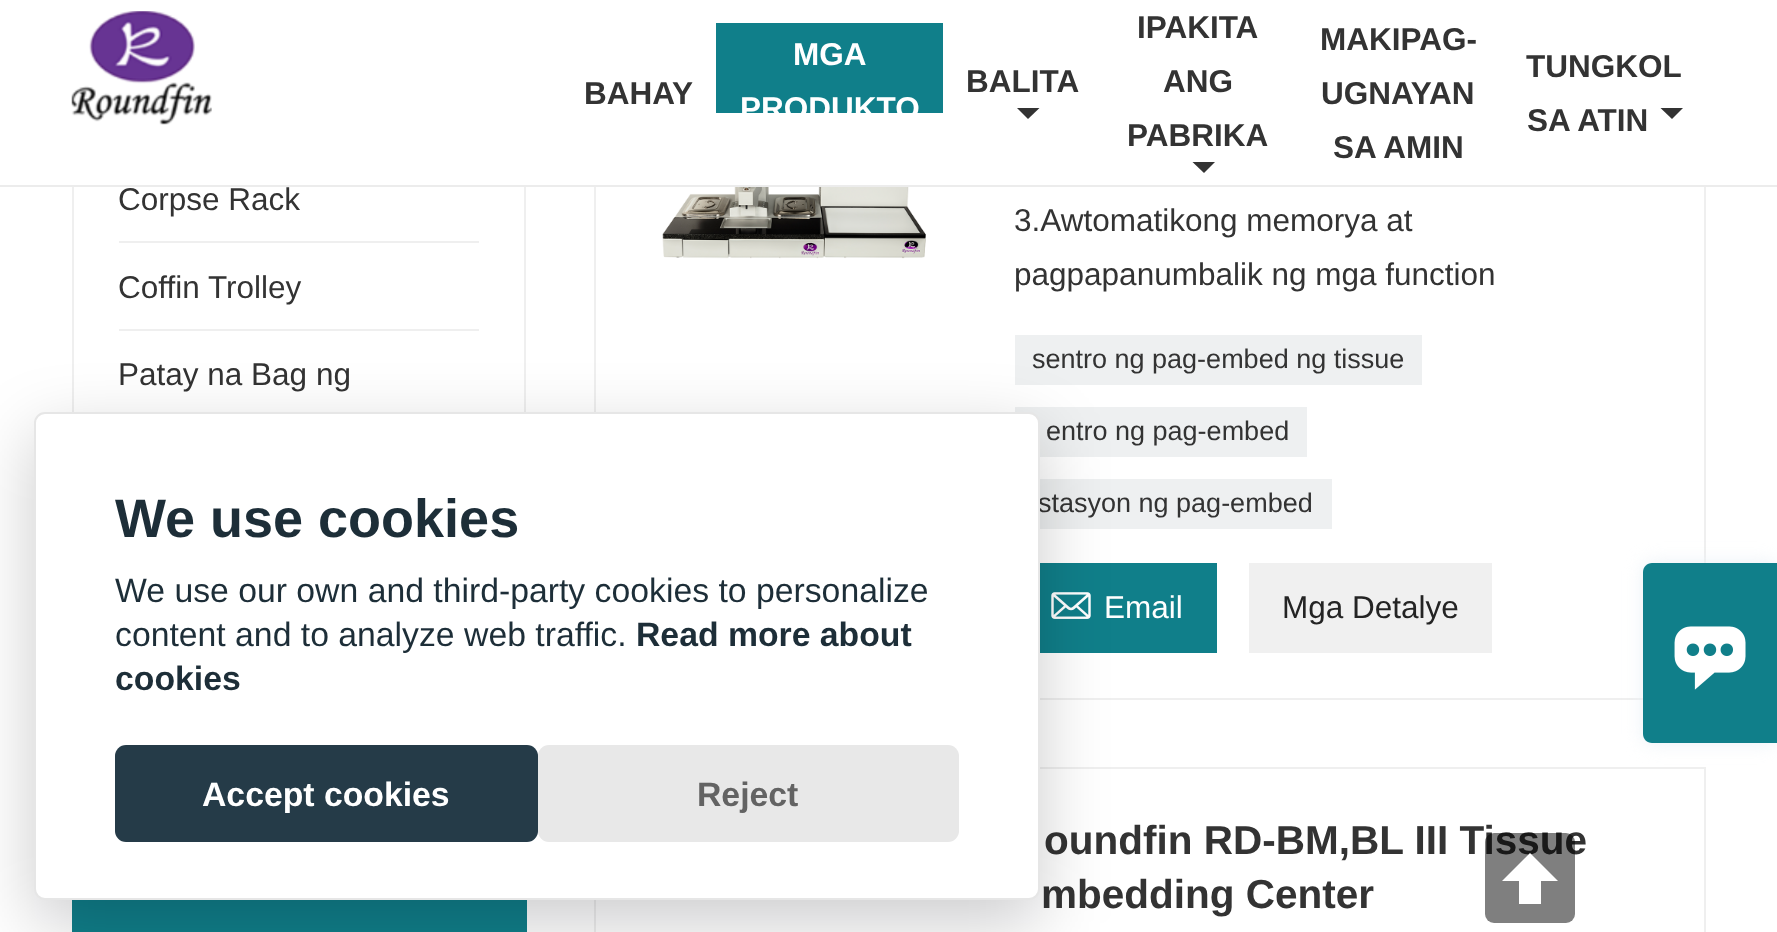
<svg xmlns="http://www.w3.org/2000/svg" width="1777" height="932">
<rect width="100%" height="100%" fill="#fff"/>
<rect x="595" y="-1" width="1110" height="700" fill="none" stroke="#efefef" stroke-width="2"/>
<rect x="594" width="1112" height="185" fill="#fff"/>
<rect y="185" width="1777" height="2" fill="#ececec"/>
<image x="71" y="11" width="141" height="114" href="media/1.png"/>
<text x="584" y="104" style="font-family:Liberation Sans;font-size:31.5px;font-weight:bold;fill:#333">BAHAY</text>
<rect x="716" y="23" width="227" height="90" fill="#107f8a"/>
<text x="793" y="65" style="font-family:Liberation Sans;font-size:31.5px;font-weight:bold;fill:#fff">MGA</text>
<text x="740" y="119" style="font-family:Liberation Sans;font-size:31.5px;font-weight:bold;fill:#fff">PRODUKTO</text>
<text x="966" y="92" style="font-family:Liberation Sans;font-size:31.5px;font-weight:bold;fill:#333">BALITA</text>
<path d="M1017 108h22.5l-11.5 11z" fill="#333"/>
<text x="1137" y="38" style="font-family:Liberation Sans;font-size:31.5px;font-weight:bold;fill:#333">IPAKITA</text>
<text x="1163" y="92" style="font-family:Liberation Sans;font-size:31.5px;font-weight:bold;fill:#333">ANG</text>
<text x="1127" y="146" style="font-family:Liberation Sans;font-size:31.5px;font-weight:bold;fill:#333">PABRIKA</text>
<path d="M1192.5 162h22.5l-11 11z" fill="#333"/>
<text x="1320" y="50" style="font-family:Liberation Sans;font-size:31.5px;font-weight:bold;fill:#333">MAKIPAG-</text>
<text x="1321" y="104" style="font-family:Liberation Sans;font-size:31.5px;font-weight:bold;fill:#333">UGNAYAN</text>
<text x="1333" y="158" style="font-family:Liberation Sans;font-size:31.5px;font-weight:bold;fill:#333">SA AMIN</text>
<text x="1526" y="77" style="font-family:Liberation Sans;font-size:31.5px;font-weight:bold;fill:#333">TUNGKOL</text>
<text x="1527" y="131" style="font-family:Liberation Sans;font-size:31.5px;font-weight:bold;fill:#333">SA ATIN</text>
<path d="M1660.5 108h22.5l-11 11z" fill="#333"/>
<rect x="524" y="187" width="2" height="225" fill="#efefef"/>
<rect x="72" y="187" width="2" height="225" fill="#efefef"/>
<rect x="119" y="241" width="360" height="2" fill="#efefef"/>
<text x="118" y="210" style="font-family:Liberation Sans;font-size:31.5px;fill:#333">Corpse Rack</text>
<rect x="119" y="329" width="360" height="2" fill="#efefef"/>
<text x="118" y="298" style="font-family:Liberation Sans;font-size:31.5px;fill:#333">Coffin Trolley</text>
<text x="118" y="385" style="font-family:Liberation Sans;font-size:31.5px;fill:#333">Patay na Bag ng</text>
<rect x="72" y="900" width="455" height="32" fill="#107f8a"/>
<image x="662" y="187" width="264" height="72" href="media/2.png"/>
<text x="1014" y="231" style="font-family:Liberation Sans;font-size:31.5px;fill:#333">3.Awtomatikong memorya at</text>
<text x="1014" y="285" style="font-family:Liberation Sans;font-size:31.5px;fill:#333">pagpapanumbalik ng mga function</text>
<rect x="1015" y="335" width="407" height="50" fill="#eef0f1"/>
<text x="1032" y="368" style="font-family:Liberation Sans;font-size:27px;fill:#333">sentro ng pag-embed ng tissue</text>
<rect x="1015" y="407" width="292" height="50" fill="#eef0f1"/>
<text x="1046" y="440" style="font-family:Liberation Sans;font-size:27px;fill:#333">entro ng pag-embed</text>
<rect x="1040" y="479" width="292" height="50" fill="#eef0f1"/>
<text x="1038" y="512" style="font-family:Liberation Sans;font-size:27px;fill:#333">stasyon ng pag-embed</text>
<rect x="1040" y="563" width="177" height="90" fill="#107f8a"/>
<image x="1051" y="592" width="40" height="27" href="media/3.png"/>
<text x="1104" y="618" style="font-family:Liberation Sans;font-size:31.5px;fill:#fff">Email</text>
<rect x="1249" y="563" width="243" height="90" fill="#f0f0f0"/>
<text x="1282" y="618" style="font-family:Liberation Sans;font-size:31.5px;fill:#242424">Mga Detalye</text>
<rect x="595" y="768" width="1110" height="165" fill="none" stroke="#efefef" stroke-width="2"/>
<text x="1044" y="854" style="font-family:Liberation Sans;font-size:40.5px;font-weight:bold;fill:#333">oundfin RD-BM,BL III Tissue</text>
<text x="1041" y="908" style="font-family:Liberation Sans;font-size:40.5px;font-weight:bold;fill:#333">mbedding Center</text>
<rect x="34" y="434" width="1006" height="489" rx="11" fill="#02020333" filter="blur(34px)"/>
<rect x="35" y="413" width="1004" height="486" rx="10" fill="#fff" stroke="#e6e6e6" stroke-width="2"/>
<text x="115" y="537" style="font-family:Liberation Sans;font-size:54px;font-weight:bold;fill:#1d2e38">We use cookies</text>
<text x="115" y="602" style="font-family:Liberation Sans;font-size:33.75px;fill:#1d2e38">We use our own and third-party cookies to personalize</text>
<text x="115" y="646" style="font-family:Liberation Sans;font-size:33.75px;fill:#1d2e38">content and to analyze web traffic.</text>
<text x="636" y="646" style="font-family:Liberation Sans;font-size:33.75px;font-weight:bold;fill:#1d2e38">Read more about</text>
<text x="115" y="690" style="font-family:Liberation Sans;font-size:33.75px;font-weight:bold;fill:#1d2e38">cookies</text>
<rect x="115" y="745" width="423" height="97" rx="11" fill="#253b48"/>
<text x="202" y="806" style="font-family:Liberation Sans;font-size:33.75px;font-weight:bold;fill:#fff">Accept cookies</text>
<rect x="538" y="745" width="421" height="97" rx="11" fill="#e8e8e8"/>
<text x="697" y="806" style="font-family:Liberation Sans;font-size:33.75px;font-weight:bold;fill:#636363">Reject</text>
<rect x="1643" y="563" width="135" height="180" rx="9" fill="#eaf0f6" filter="blur(9px)"/>
<path d="M1652 563h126v180h-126c-5 0-9-4-9-9v-162c0-5 4-9 9-9z" fill="#107f8a"/>
<image x="1674" y="626" width="72" height="64" href="media/4.png"/>
<rect x="1485" y="833" width="90" height="90" rx="9" fill="#00000080"/>
<path d="M1558 881l-28-28l-28 28h17v23h22v-23z" fill="#fff"/>
</svg>
